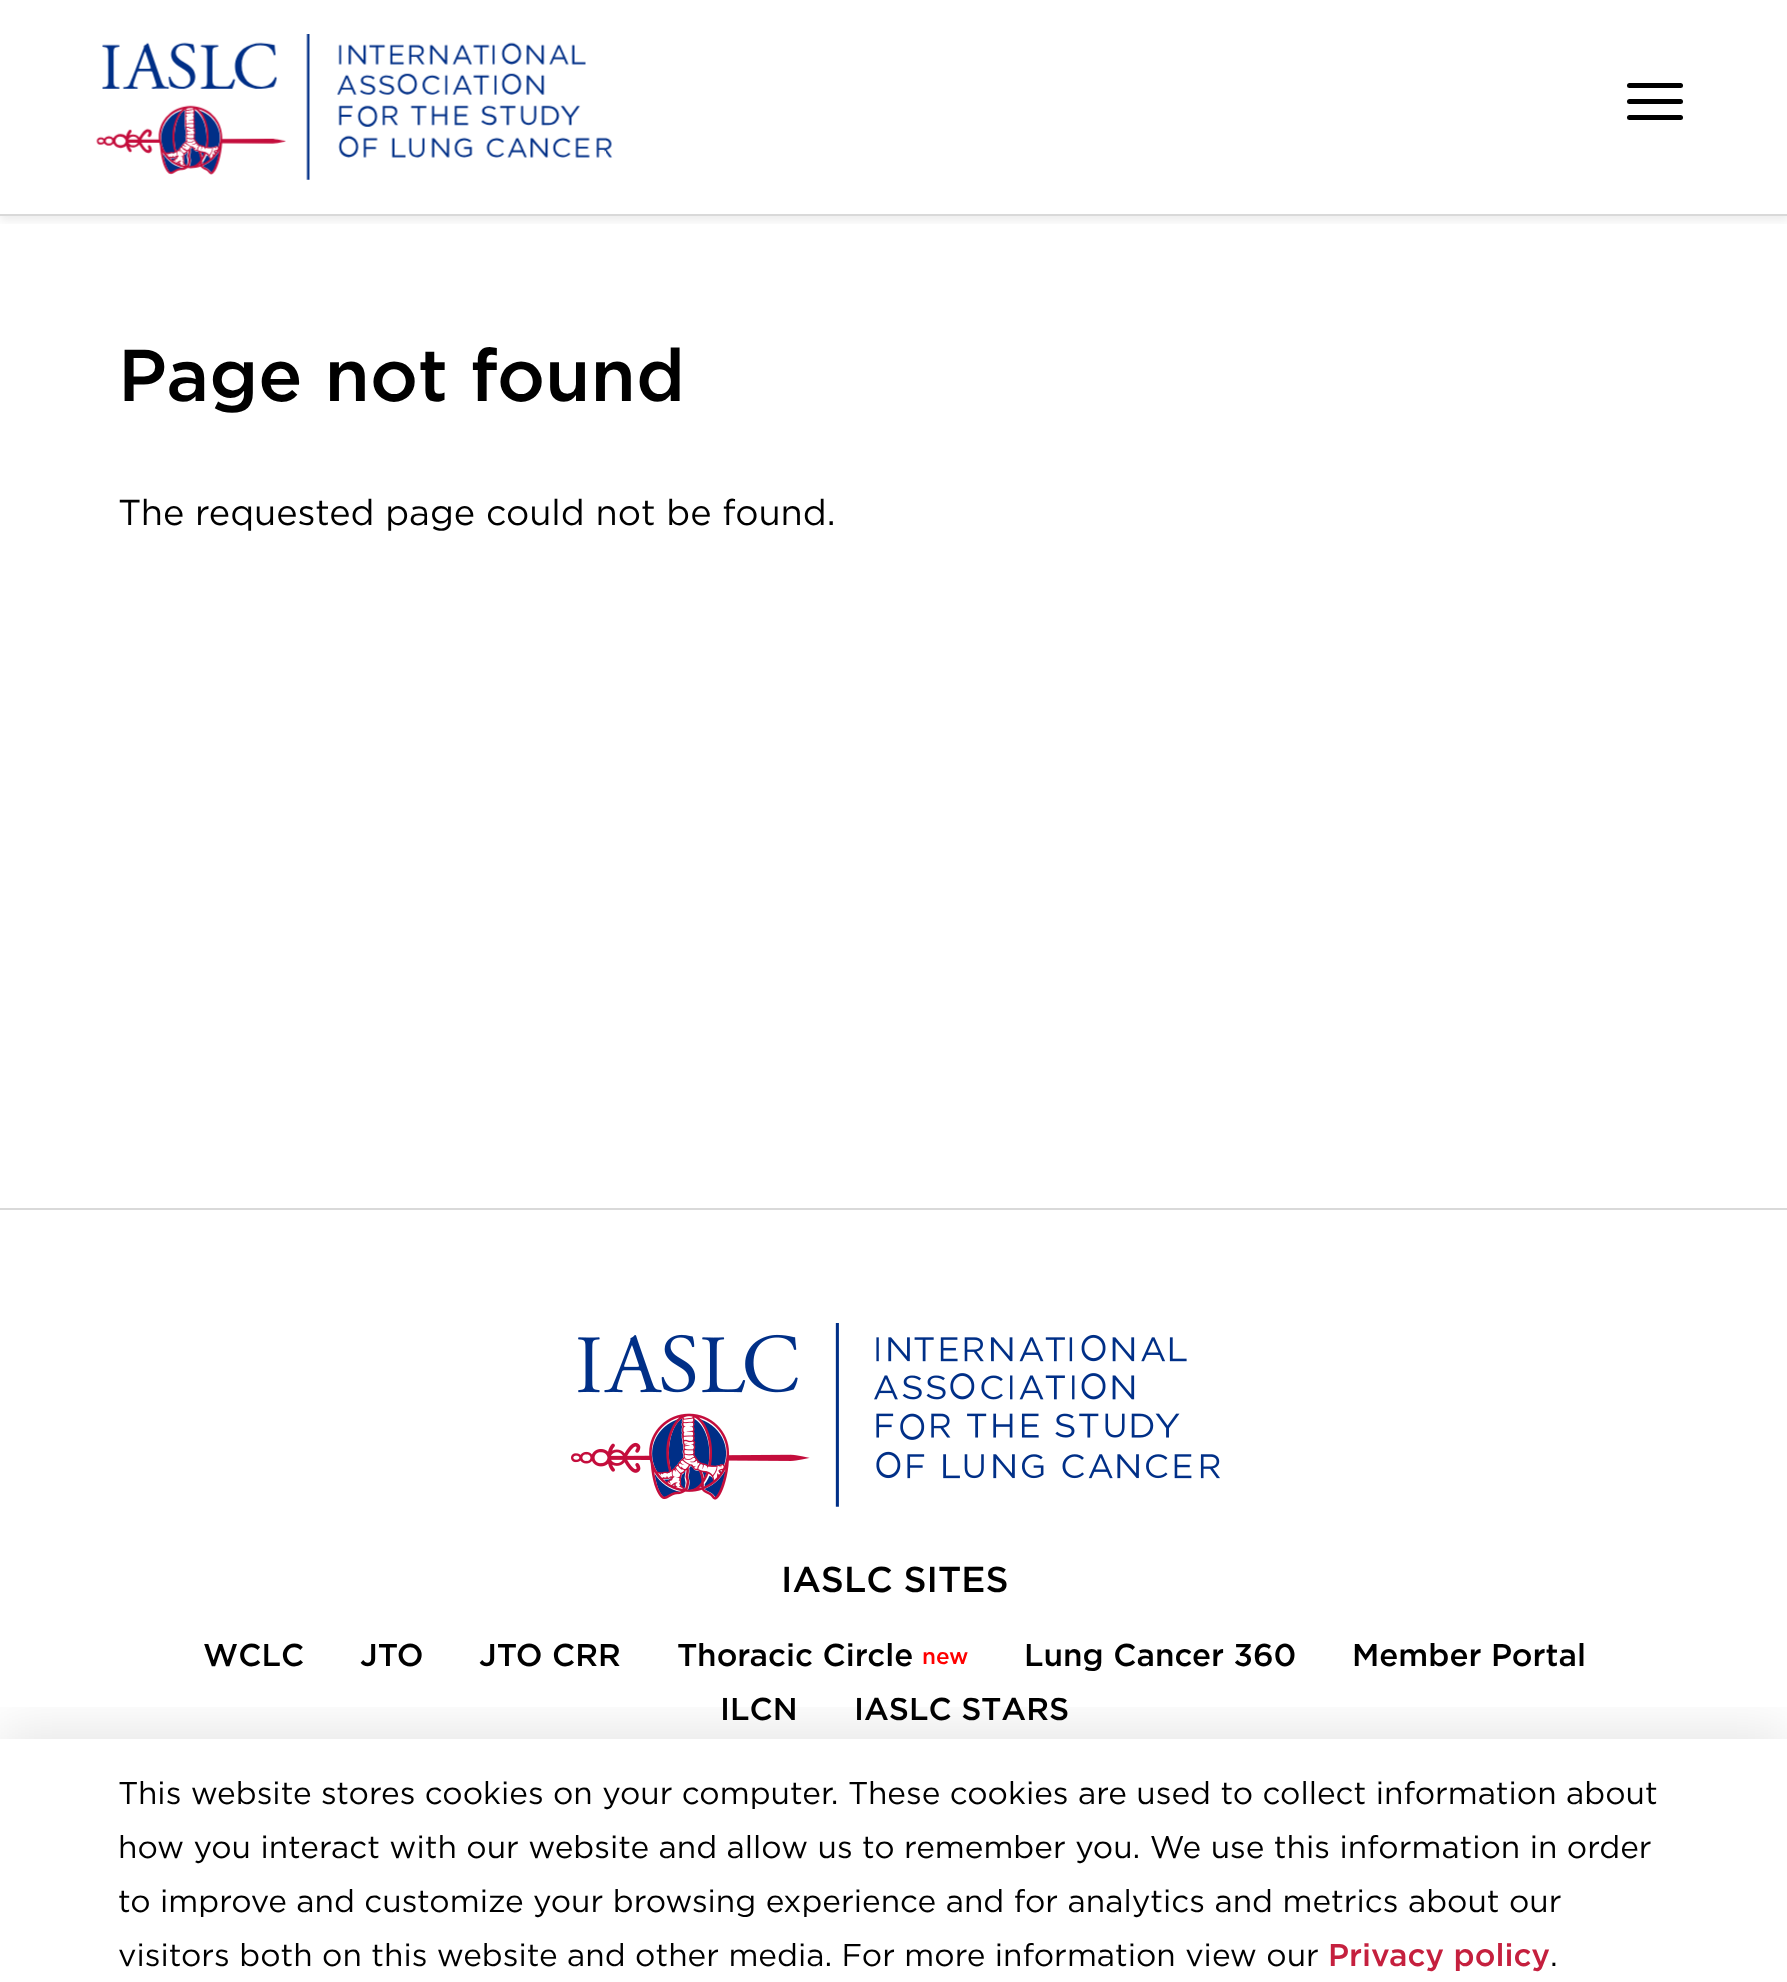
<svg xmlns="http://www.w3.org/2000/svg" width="1787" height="1982">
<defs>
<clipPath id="clip1"><rect x="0" y="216" width="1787" height="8"/></clipPath>
<clipPath id="clip2"><rect x="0" y="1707" width="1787" height="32"/></clipPath>
</defs>
<rect width="100%" height="100%" fill="#fff"/>
<g clip-path="url(#clip1)">
<rect y="5" width="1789" height="216" fill="#00000012" filter="blur(4.5px)"/>
</g>
<rect y="214" width="1787" height="2" fill="#d9d9d9"/>
<image x="96" y="34" width="517" height="146" href="media/1.png"/>
<rect x="1627" y="83" width="56" height="5" rx="2.5" fill="#000"/>
<rect x="1627" y="99" width="56" height="5" rx="2.5" fill="#000"/>
<rect x="1627" y="115" width="56" height="5" rx="2.5" fill="#000"/>
<text x="118" y="401" style="font-family:Gotham;font-size:73.25px;font-weight:500;fill:#000">Page not found</text>
<text x="118" y="525" style="font-family:Gotham;font-size:36px;fill:#000">The requested page could not be found.</text>
<rect y="1208" width="1787" height="2" fill="#d9d9d9"/>
<image x="571" y="1323" width="649" height="184" href="media/2.png"/>
<text x="781" y="1592" style="font-family:Gotham;font-size:36px;font-weight:500;fill:#000">IASLC SITES</text>
<text x="203" y="1666" style="font-family:Gotham;font-size:31.5px;font-weight:500;fill:#000">WCLC</text>
<text x="360" y="1666" style="font-family:Gotham;font-size:31.5px;font-weight:500;fill:#000">JTO</text>
<text x="479" y="1666" style="font-family:Gotham;font-size:31.5px;font-weight:500;fill:#000">JTO CRR</text>
<text x="677" y="1666" style="font-family:Gotham;font-size:31.5px;font-weight:500;fill:#000">Thoracic Circle</text>
<text x="922" y="1664" style="font-family:Gotham;font-size:22.5px;font-weight:500;fill:#f00">new</text>
<text x="1024" y="1666" style="font-family:Gotham;font-size:31.5px;font-weight:500;fill:#000">Lung Cancer 360</text>
<text x="1352" y="1666" style="font-family:Gotham;font-size:31.5px;font-weight:500;fill:#000">Member Portal</text>
<text x="720" y="1720" style="font-family:Gotham;font-size:31.5px;font-weight:500;fill:#000">ILCN</text>
<text x="854" y="1720" style="font-family:Gotham;font-size:31.5px;font-weight:500;fill:#000">IASLC STARS</text>
<g clip-path="url(#clip2)">
<rect y="1730" width="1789" height="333" fill="#0000001a" filter="blur(27px)"/>
</g>
<text x="118" y="1804" style="font-family:Gotham;font-size:31.5px;fill:#000">This website stores cookies on your computer. These cookies are used to collect information about</text>
<text x="118" y="1858" style="font-family:Gotham;font-size:31.5px;fill:#000">how you interact with our website and allow us to remember you. We use this information in order</text>
<text x="118" y="1912" style="font-family:Gotham;font-size:31.5px;fill:#000">to improve and customize your browsing experience and for analytics and metrics about our</text>
<text x="118" y="1966" style="font-family:Gotham;font-size:31.5px;fill:#000">visitors both on this website and other media. For more information view our</text>
<text x="1328" y="1966" style="font-family:Gotham;font-size:31.5px;font-weight:500;fill:#c5203e">Privacy policy</text>
<text x="1550" y="1966" style="font-family:Gotham;font-size:31.5px;fill:#000">.</text>
</svg>
